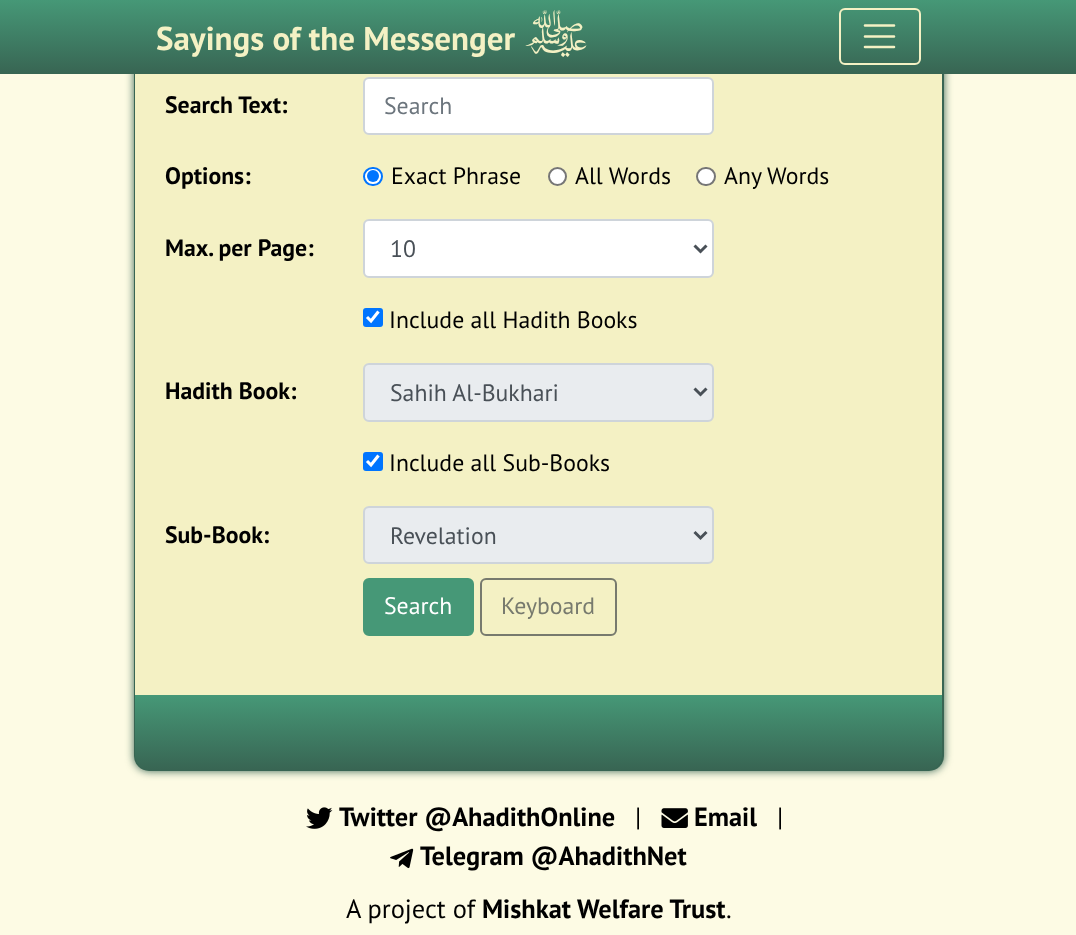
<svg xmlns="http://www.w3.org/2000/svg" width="1076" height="935">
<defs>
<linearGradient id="g1" gradientUnits="userSpaceOnUse" x1="539" y1="0" x2="539" y2="74"><stop offset="0" stop-color="#469877"/><stop offset="1" stop-color="#386553"/></linearGradient>
<linearGradient id="g2" gradientUnits="userSpaceOnUse" x1="135" y1="695" x2="135" y2="770"><stop offset="0" stop-color="#469877"/><stop offset="1" stop-color="#386553"/></linearGradient>
</defs>
<rect width="100%" height="100%" fill="#fdfbe4"/>
<rect x="134" y="-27" width="810" height="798" rx="15" fill="#386553" filter="blur(4px)"/>
<rect x="135" y="-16" width="808" height="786" rx="14" fill="#386553" stroke="#386553" stroke-width="2"/>
<rect width="1076" height="74" fill="url(#g1)"/>
<text x="156" y="50" style="font-family:PT Sans;font-size:33px;font-weight:bold;fill:#f4f1c4">Sayings of the Messenger</text>
<text x="588" y="50" style="font-family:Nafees;font-size:66px;direction:rtl;fill:#f4f1c4">ﷺ</text>
<rect x="840" y="9" width="80" height="55" rx="5" fill="none" stroke="#f4f1c4" stroke-width="2"/>
<path d="M865 25.5h29m-29 11h29m-29 10.5h29" fill="none" stroke="#f4f1c4" stroke-width="2.6" stroke-linecap="round"/>
<rect x="135" y="74" width="807" height="621" fill="#f4f1c4"/>
<text x="165" y="113" style="font-family:PT Sans;font-size:23.75px;font-weight:bold;fill:#000">Search Text:</text>
<rect x="364" y="78" width="349" height="56" rx="5" fill="#fff" stroke="#ced4da" stroke-width="2"/>
<text x="384" y="114" style="font-family:PT Sans;font-size:23.75px;fill:#6c757d">Search</text>
<text x="165" y="184" style="font-family:PT Sans;font-size:23.75px;font-weight:bold;fill:#000">Options:</text>
<rect x="364" y="168" width="18" height="17" rx="8.5" fill="#fff" stroke="#0075ff" stroke-width="2"/>
<circle cx="373" cy="176" r="6" fill="#0075ff"/>
<text x="391" y="184" style="font-family:PT Sans;font-size:23.75px;fill:#000">Exact Phrase</text>
<circle cx="557.5" cy="176.5" r="8.5" fill="#fff" stroke="#767676" stroke-width="2"/>
<text x="575" y="184" style="font-family:PT Sans;font-size:23.75px;fill:#000">All Words</text>
<rect x="697" y="168" width="18" height="17" rx="8.5" fill="#fff" stroke="#767676" stroke-width="2"/>
<text x="724" y="184" style="font-family:PT Sans;font-size:23.75px;fill:#000">Any Words</text>
<text x="165" y="256" style="font-family:PT Sans;font-size:23.75px;font-weight:bold;fill:#000">Max. per Page:</text>
<rect x="364" y="220" width="349" height="57" rx="5" fill="#fff" stroke="#ced4da" stroke-width="2"/>
<path d="M694.5 245.5l6 6l6-6" fill="none" stroke="#495057" stroke-width="3"/>
<text x="390" y="257" style="font-family:PT Sans;font-size:23.75px;fill:#495057">10</text>
<rect x="363" y="308" width="20" height="19" rx="3" fill="#0075ff"/>
<path d="M367 317l4 4l7.5-9.5" fill="none" stroke="#fff" stroke-width="3.1"/>
<text x="389" y="328" style="font-family:PT Sans;font-size:23.75px;fill:#000">Include all Hadith Books</text>
<text x="165" y="399" style="font-family:PT Sans;font-size:23.75px;font-weight:bold;fill:#000">Hadith Book:</text>
<rect x="364" y="364" width="349" height="57" rx="5" fill="#e9ecef" stroke="#ced4da" stroke-width="2"/>
<path d="M694.5 388.5l6 6l6-6" fill="none" stroke="#495057" stroke-width="3"/>
<text x="390" y="401" style="font-family:PT Sans;font-size:23.75px;fill:#495057">Sahih Al-Bukhari</text>
<rect x="363" y="452" width="20" height="19" rx="3" fill="#0075ff"/>
<path d="M367 461l4 4l7.5-9.5" fill="none" stroke="#fff" stroke-width="3.1"/>
<text x="389" y="471" style="font-family:PT Sans;font-size:23.75px;fill:#000">Include all Sub-Books</text>
<text x="165" y="543" style="font-family:PT Sans;font-size:23.75px;font-weight:bold;fill:#000">Sub-Book:</text>
<rect x="364" y="507" width="349" height="56" rx="5" fill="#e9ecef" stroke="#ced4da" stroke-width="2"/>
<path d="M694.5 532l6 6l6-6" fill="none" stroke="#495057" stroke-width="3"/>
<text x="390" y="544" style="font-family:PT Sans;font-size:23.75px;fill:#495057">Revelation</text>
<rect x="364" y="579" width="109" height="56" rx="5" fill="#469877" stroke="#469877" stroke-width="2"/>
<text x="384" y="614" style="font-family:PT Sans;font-size:23.75px;fill:#fff">Search</text>
<rect x="481" y="579" width="135" height="56" rx="5" fill="none" stroke="#777a6e" stroke-width="2"/>
<text x="501" y="614" style="font-family:PT Sans;font-size:23.75px;fill:#777a6e">Keyboard</text>
<path d="M135 695h807v60c0 8.5-6.5 15-15 15h-777c-8.5 0-15-6.5-15-15z" fill="url(#g2)"/>
<image x="306" y="807" width="27" height="22" href="media/1.png"/>
<text x="339" y="826" style="font-family:PT Sans;font-size:26.4px;font-weight:bold;fill:#000">Twitter @AhadithOnline</text>
<text x="635" y="826" style="font-family:PT Sans;font-size:26.4px;fill:#000">|</text>
<image x="661" y="808" width="27" height="20" href="media/2.png"/>
<text x="694" y="826" style="font-family:PT Sans;font-size:26.4px;font-weight:bold;fill:#000">Email</text>
<text x="777" y="826" style="font-family:PT Sans;font-size:26.4px;fill:#000">|</text>
<image x="390" y="848" width="24" height="21" href="media/3.png"/>
<text x="420" y="865" style="font-family:PT Sans;font-size:26.4px;font-weight:bold;fill:#000">Telegram @AhadithNet</text>
<text x="346" y="918" style="font-family:PT Sans;font-size:26.4px;fill:#000">A project of</text>
<text x="482" y="918" style="font-family:PT Sans;font-size:26.4px;font-weight:bold;fill:#000">Mishkat Welfare Trust</text>
<text x="726" y="918" style="font-family:PT Sans;font-size:26.4px;fill:#000">.</text>
</svg>
